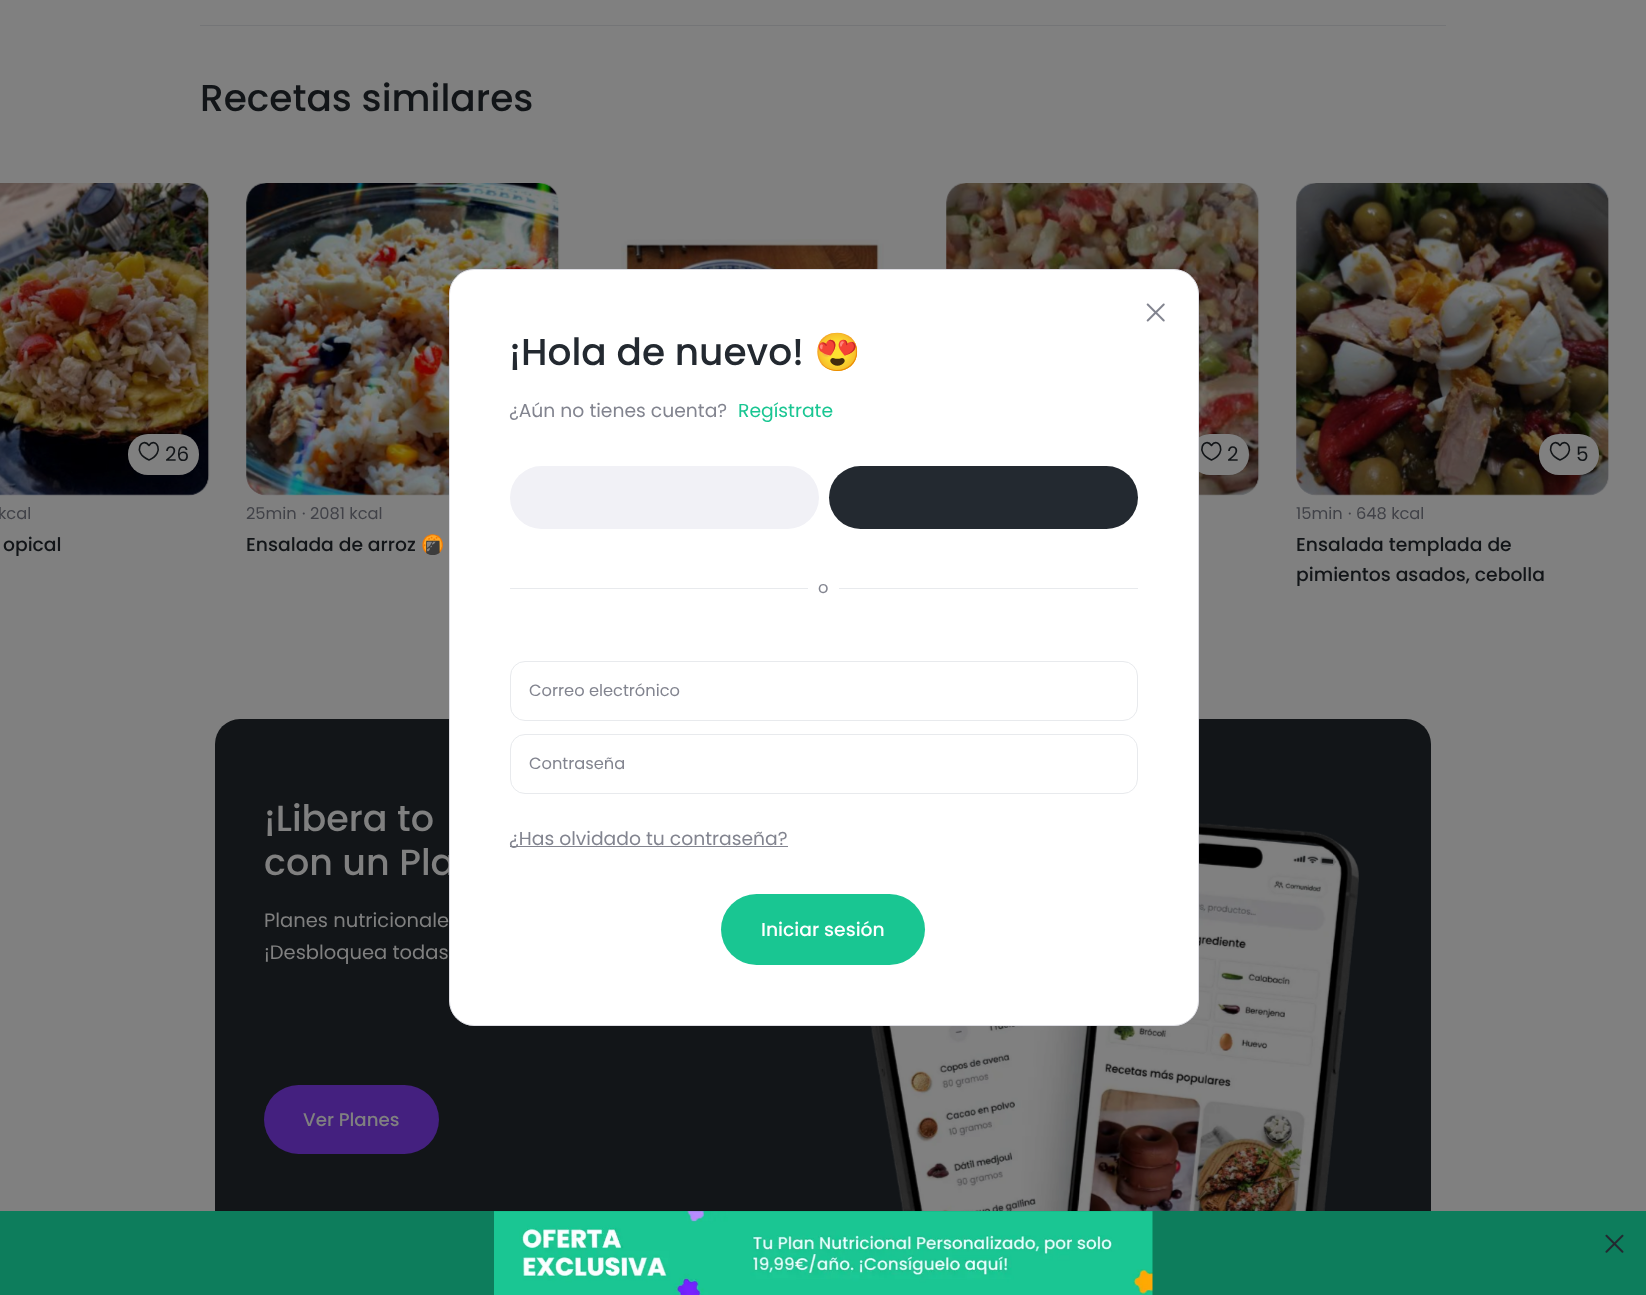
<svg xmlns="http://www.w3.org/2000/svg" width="1646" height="1295">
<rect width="100%" height="100%" fill="#808080"/>
<rect x="200" y="25" width="1246" height="1" fill="#747577"/>
<text x="200" y="111" style="font-family:Poppins;font-size:37.5px;font-weight:500;fill:#121518">Recetas similares</text>
<image x="621" y="239" width="263" height="30" href="media/1.png"/>
<image x="0" y="183" width="210" height="313" href="media/2.png"/>
<rect x="128" y="434" width="71" height="41" rx="20" fill="#808080"/>
<path d="M149 445.5c-6.5-9.5-18 7 0 14.5m0-14.5c6.5-9.5 17 7.5 0 14.5" fill="none" stroke="#121518" stroke-width="1.6" stroke-linecap="round"/>
<text x="165" y="461" style="font-family:Poppins;font-size:20px;fill:#121518">26</text>
<text x="-2" y="519" style="font-family:Poppins;font-size:16.25px;fill:#414248">kcal</text>
<text x="3" y="551" style="font-family:Poppins;font-size:18.75px;font-weight:500;fill:#121518">opical</text>
<image x="246" y="183" width="314" height="313" href="media/3.png"/>
<text x="246" y="519" style="font-family:Poppins;font-size:16.25px;fill:#414248">25min</text>
<text x="302" y="519" style="font-family:Poppins;font-size:16.25px;fill:#414248">·</text>
<text x="310" y="519" style="font-family:Poppins;font-size:16.25px;fill:#414248">2081 kcal</text>
<text x="246" y="551" style="font-family:Poppins;font-size:18.75px;font-weight:500;fill:#121518">Ensalada de arroz</text>
<text x="421" y="551" style="font-family:Noto Color Emoji;font-size:18.75px;fill:#121518">🍘</text>
<image x="946" y="183" width="314" height="313" href="media/4.png"/>
<rect x="1190" y="434" width="59" height="41" rx="20" fill="#808080"/>
<path d="M1211.5 445.5c-6.5-9.5-18 7 0 14.5m0-14.5c6.5-9.5 17 7.5 0 14.5" fill="none" stroke="#121518" stroke-width="1.6" stroke-linecap="round"/>
<text x="1227" y="461" style="font-family:Poppins;font-size:20px;fill:#121518">2</text>
<image x="1296" y="183" width="313" height="313" href="media/5.png"/>
<rect x="1539" y="434" width="60" height="41" rx="20" fill="#808080"/>
<path d="M1560 445.5c-6.5-9.5-17.5 7 0 14.5m0-14.5c6.5-9.5 17.5 7.5 0 14.5" fill="none" stroke="#121518" stroke-width="1.6" stroke-linecap="round"/>
<text x="1576" y="461" style="font-family:Poppins;font-size:20px;fill:#121518">5</text>
<text x="1296" y="519" style="font-family:Poppins;font-size:16.25px;fill:#414248">15min</text>
<text x="1348" y="519" style="font-family:Poppins;font-size:16.25px;fill:#414248">·</text>
<text x="1356" y="519" style="font-family:Poppins;font-size:16.25px;fill:#414248">648 kcal</text>
<text x="1296" y="551" style="font-family:Poppins;font-size:18.75px;font-weight:500;fill:#121518">Ensalada templada de</text>
<text x="1296" y="581" style="font-family:Poppins;font-size:18.75px;font-weight:500;fill:#121518">pimientos asados, cebolla</text>
<rect x="215" y="719" width="1216" height="547" rx="25" fill="#121518"/>
<text x="264" y="831" style="font-family:Poppins;font-size:36.5px;font-weight:500;fill:#808080">¡Libera to</text>
<text x="264" y="875" style="font-family:Poppins;font-size:36.5px;font-weight:500;fill:#808080">con un Pla</text>
<text x="264" y="927" style="font-family:Poppins;font-size:19.5px;fill:#808080">Planes nutricionale</text>
<text x="264" y="959" style="font-family:Poppins;font-size:19.5px;fill:#808080">¡Desbloquea todas</text>
<rect x="264" y="1085" width="175" height="69" rx="34.5" fill="#44207f"/>
<text x="303" y="1126" style="font-family:Poppins;font-size:18.25px;font-weight:500;fill:#808080">Ver Planes</text>
<image x="870" y="822" width="489" height="389" href="media/6.png"/>
<rect x="449.5" y="269.5" width="749" height="756" rx="24.5" fill="#fff" stroke="#dedee4"/>
<image x="1146" y="303" width="19" height="19" href="media/7.png"/>
<text x="509" y="365" style="font-family:Poppins;font-size:37.5px;font-weight:500;fill:#232930">¡Hola de nuevo!</text>
<text x="814" y="365" style="font-family:Noto Color Emoji;font-size:37.5px;fill:#232930">😍</text>
<text x="509" y="417" style="font-family:Poppins;font-size:18.75px;fill:#82848f">¿Aún no tienes cuenta?</text>
<text x="738" y="417" style="font-family:Poppins;font-size:18.75px;fill:#19c692">Regístrate</text>
<rect x="510" y="466" width="309" height="63" rx="31.5" fill="#f1f1f6"/>
<rect x="829" y="466" width="309" height="63" rx="31.5" fill="#232930"/>
<rect x="510" y="588" width="298" height="1" fill="#e8eaed"/>
<text x="818" y="593" style="font-family:Poppins;font-size:16.25px;fill:#82848f">o</text>
<rect x="839" y="588" width="299" height="1" fill="#e8eaed"/>
<rect x="510.5" y="661.5" width="627" height="59" rx="14.5" fill="none" stroke="#e8eaed"/>
<text x="529" y="696" style="font-family:Poppins;font-size:16.25px;fill:#82848f">Correo electrónico</text>
<rect x="510.5" y="734.5" width="627" height="59" rx="14.5" fill="none" stroke="#e8eaed"/>
<text x="529" y="769" style="font-family:Poppins;font-size:16.25px;fill:#82848f">Contraseña</text>
<rect x="510" y="846" width="278" height="1" fill="#82848f"/>
<text x="509" y="845" style="font-family:Poppins;font-size:18.75px;fill:#82848f">¿Has olvidado tu contraseña?</text>
<rect x="721" y="894" width="204" height="71" rx="35.5" fill="#19c692"/>
<text x="761" y="936" style="font-family:Poppins;font-size:18.75px;font-weight:500;fill:#fff">Iniciar sesión</text>
<rect y="1211" width="1646" height="84" fill="#0d7d5c"/>
<image x="494" y="1211" width="659" height="84" href="media/8.png"/>
<image x="1605" y="1234" width="19" height="19" href="media/9.png"/>
</svg>
